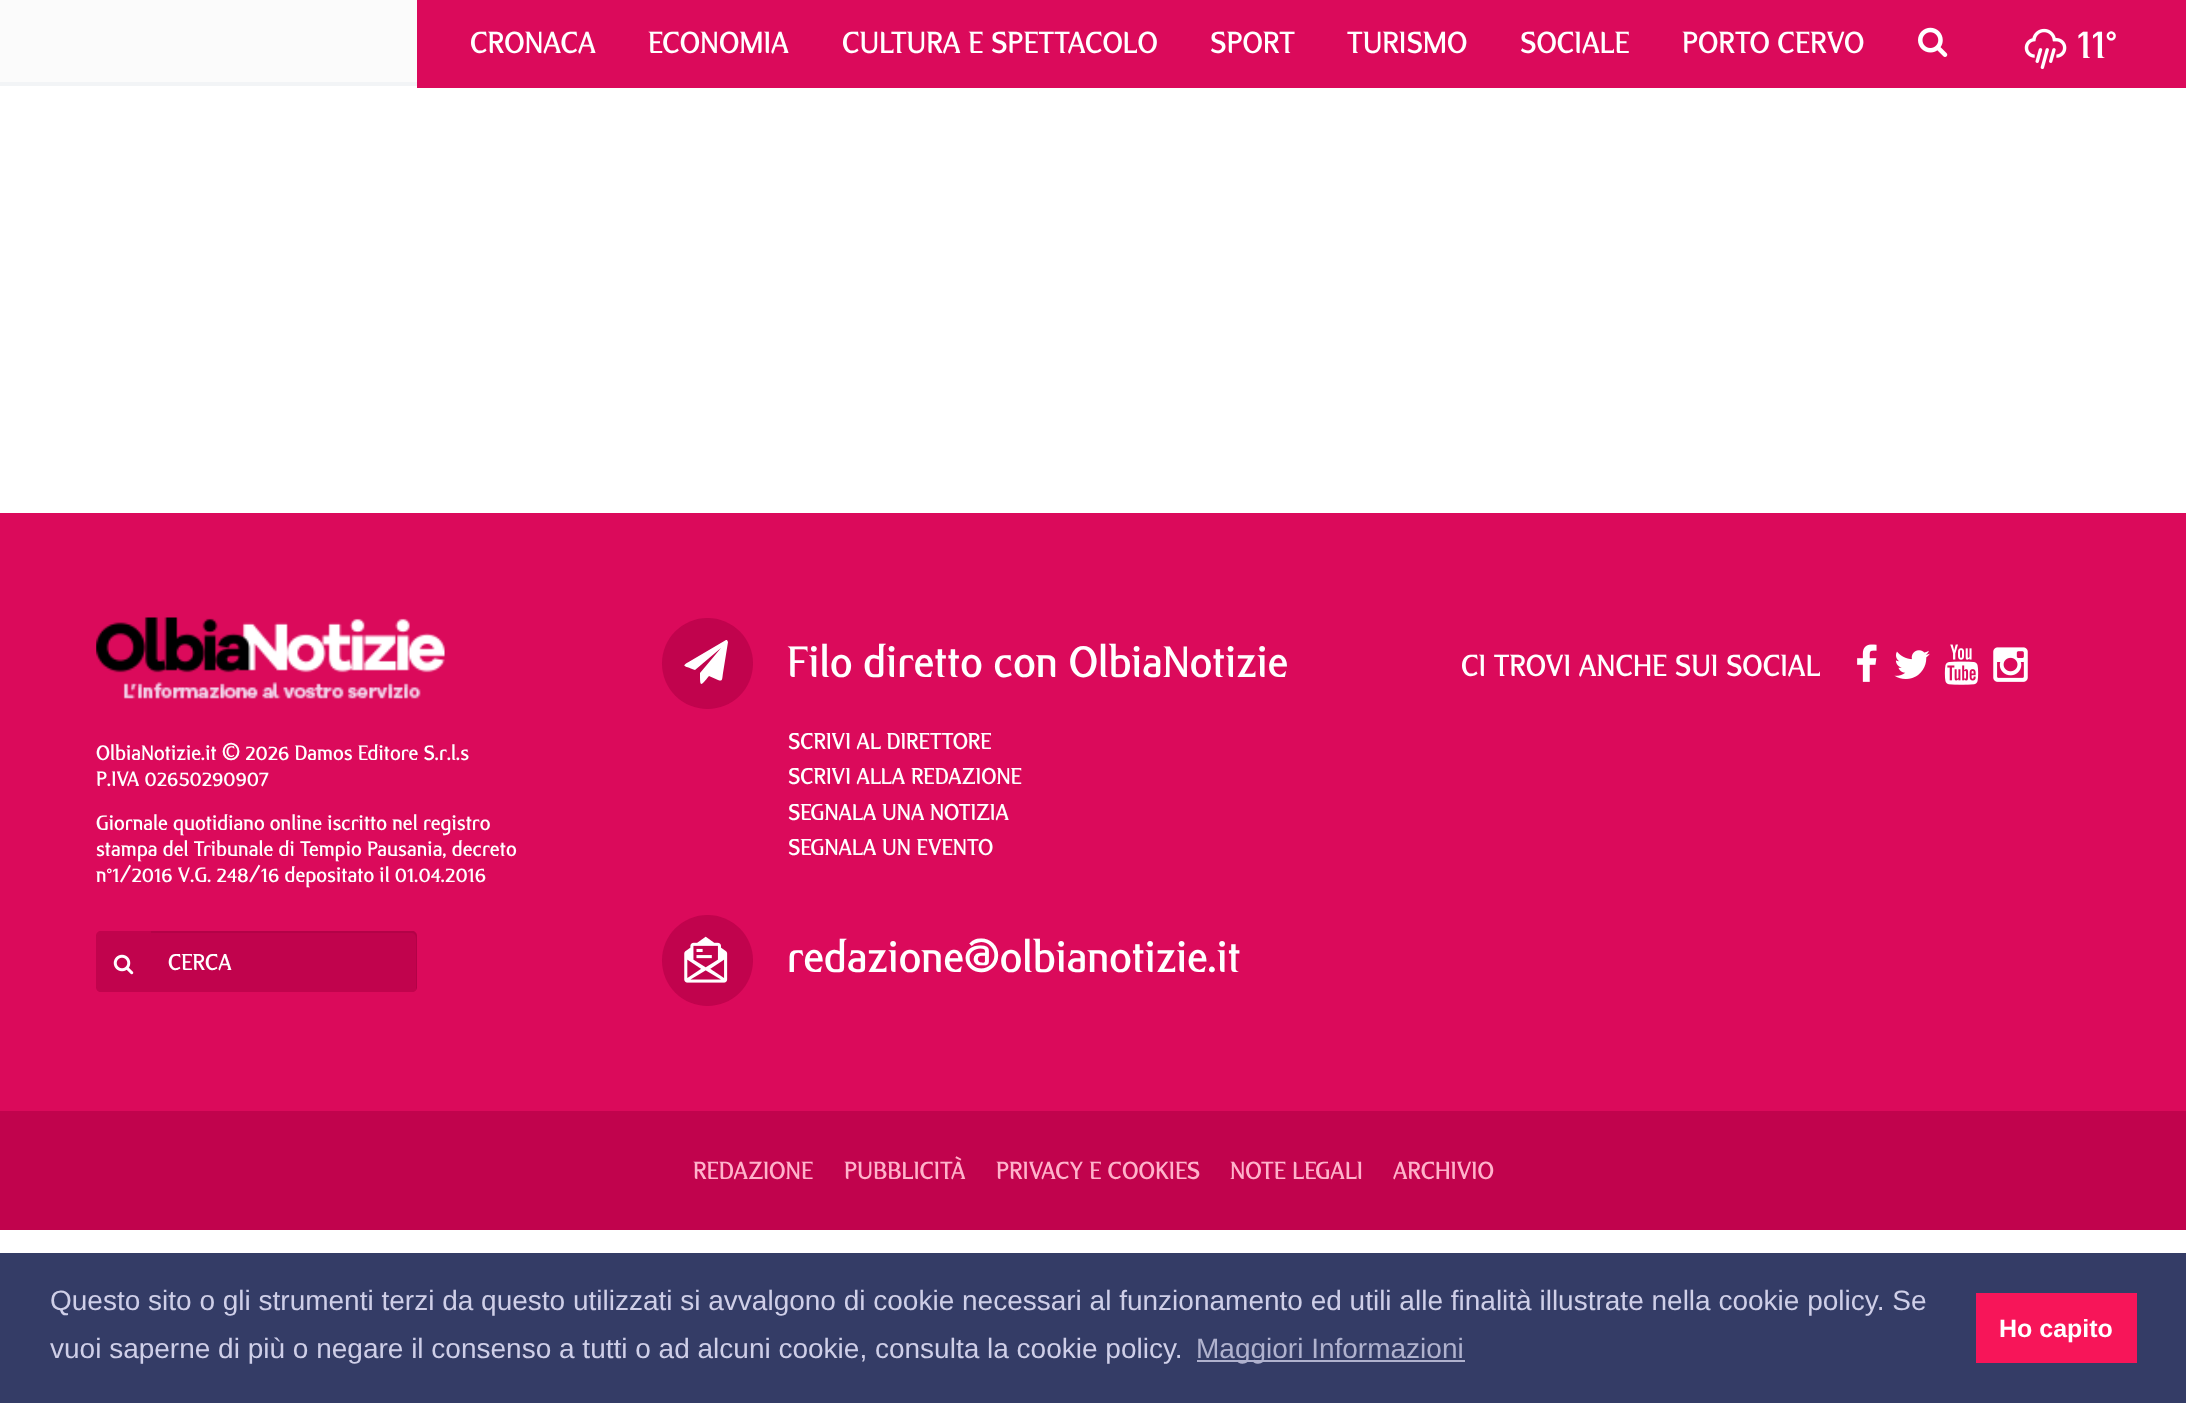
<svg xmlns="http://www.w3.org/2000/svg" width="2186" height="1403">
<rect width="100%" height="100%" fill="#fff"/>
<rect width="417" height="82" fill="#fbfbfb"/>
<rect y="82" width="417" height="4" fill="#f2f4f6"/>
<rect x="417" width="1769" height="88" fill="#db0a5b"/>
<text x="470" y="53" style="font-family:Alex;font-size:28px;fill:#fff">CRONACA</text>
<text x="648" y="53" style="font-family:Alex;font-size:28px;fill:#fff">ECONOMIA</text>
<text x="842" y="53" style="font-family:Alex;font-size:28px;fill:#fff">CULTURA E SPETTACOLO</text>
<text x="1210" y="53" style="font-family:Alex;font-size:28px;fill:#fff">SPORT</text>
<text x="1347" y="53" style="font-family:Alex;font-size:28px;fill:#fff">TURISMO</text>
<text x="1520" y="53" style="font-family:Alex;font-size:28px;fill:#fff">SOCIALE</text>
<text x="1682" y="53" style="font-family:Alex;font-size:28px;fill:#fff">PORTO CERVO</text>
<image x="1918" y="27" width="30" height="30" href="media/1.png"/>
<image x="2024" y="28" width="43" height="42" href="media/2.png"/>
<text x="2077" y="58" style="font-family:Alex;font-size:38px;fill:#fff">11°</text>
<rect y="513" width="2186" height="598" fill="#db0a5b"/>
<circle cx="707.5" cy="663.5" r="45.5" fill="#c1034d"/>
<path d="M727 640l1 2l-5 31c-1 6 0 9-5 7l-9-4c-9 11-9 11-9-3l21-25l-26 22c-12-5-15-3-3-10l34-20z" fill="#fff"/>
<text x="787" y="677" style="font-family:Alex;font-size:40.25px;fill:#fff">Filo diretto con OlbiaNotizie</text>
<text x="788" y="749" style="font-family:Alex;font-size:21px;fill:#fff">SCRIVI AL DIRETTORE</text>
<text x="788" y="784" style="font-family:Alex;font-size:21px;fill:#fff">SCRIVI ALLA REDAZIONE</text>
<text x="788" y="820" style="font-family:Alex;font-size:21px;fill:#fff">SEGNALA UNA NOTIZIA</text>
<text x="788" y="855" style="font-family:Alex;font-size:21px;fill:#fff">SEGNALA UN EVENTO</text>
<circle cx="707.5" cy="960.5" r="45.5" fill="#c1034d"/>
<image x="684" y="936" width="44" height="47" href="media/3.png"/>
<text x="787" y="972" style="font-family:Alex;font-size:40.25px;fill:#fff">redazione@olbianotizie.it</text>
<text x="1461" y="676" style="font-family:Alex;font-size:28px;fill:#fff">CI TROVI ANCHE SUI SOCIAL</text>
<image x="1857" y="644" width="20" height="38" href="media/4.png"/>
<image x="1894" y="650" width="36" height="29" href="media/5.png"/>
<image x="1944" y="644" width="35" height="41" href="media/6.png"/>
<image x="1993" y="647" width="35" height="35" href="media/7.png"/>
<image x="96" y="617" width="349" height="82" href="media/8.png"/>
<text x="96" y="760" style="font-family:Alex;font-size:19.25px;fill:#fff">OlbiaNotizie.it © 2026 Damos Editore S.r.l.s</text>
<text x="96" y="786" style="font-family:Alex;font-size:19.25px;fill:#fff">P.IVA 02650290907</text>
<text x="96" y="830" style="font-family:Alex;font-size:19.25px;fill:#fff">Giornale quotidiano online iscritto nel registro</text>
<text x="96" y="856" style="font-family:Alex;font-size:19.25px;fill:#fff">stampa del Tribunale di Tempio Pausania, decreto</text>
<text x="96" y="882" style="font-family:Alex;font-size:19.25px;fill:#fff">n°1/2016 V.G. 248/16 depositato il 01.04.2016</text>
<path d="M101 931h50v61h-50c-3 0-5-2-5-5v-51c0-3 2-5 5-5z" fill="#c1034d"/>
<image x="113" y="954" width="21" height="21" href="media/9.png"/>
<path d="M151 931h261c3 0 5 2 5 5v51c0 3-2 5-5 5h-261z" fill="#c1034d"/>
<path d="M151 931v2h260c3 0 5 2 5 5v52c1-1 1-2 1-3v-51c0-3-2-5-5-5z" fill="#00000012"/>
<text x="168" y="970" style="font-family:Alex;font-size:21px;fill:#fff">CERCA</text>
<rect y="1111" width="2186" height="119" fill="#c1034d"/>
<text x="693" y="1179" style="font-family:Alex;font-size:22.75px;fill:#ffb3cb">REDAZIONE</text>
<text x="844" y="1179" style="font-family:Alex;font-size:22.75px;fill:#ffb3cb">PUBBLICITÀ</text>
<text x="996" y="1179" style="font-family:Alex;font-size:22.75px;fill:#ffb3cb">PRIVACY E COOKIES</text>
<text x="1230" y="1179" style="font-family:Alex;font-size:22.75px;fill:#ffb3cb">NOTE LEGALI</text>
<text x="1393" y="1179" style="font-family:Alex;font-size:22.75px;fill:#ffb3cb">ARCHIVIO</text>
<rect y="1253" width="2186" height="150" fill="#343c66"/>
<text x="50" y="1310" style="font-family:Liberation Sans;font-size:28px;fill:#cfcfe8">Questo sito o gli strumenti terzi da questo utilizzati si avvalgono di cookie necessari al funzionamento ed utili alle finalità illustrate nella cookie policy. Se</text>
<text x="50" y="1358" style="font-family:Liberation Sans;font-size:28px;fill:#cfcfe8">vuoi saperne di più o negare il consenso a tutti o ad alcuni cookie, consulta la cookie policy.</text>
<rect x="1197" y="1360" width="268" height="2" fill="#b0b2ce"/>
<text x="1196" y="1358" style="font-family:Liberation Sans;font-size:28px;fill:#b0b2ce">Maggiori Informazioni</text>
<rect x="1976" y="1293" width="161" height="70" fill="#f71559"/>
<text x="1999" y="1337" style="font-family:Liberation Sans;font-size:25px;font-weight:bold;fill:#fff">Ho capito</text>
</svg>
